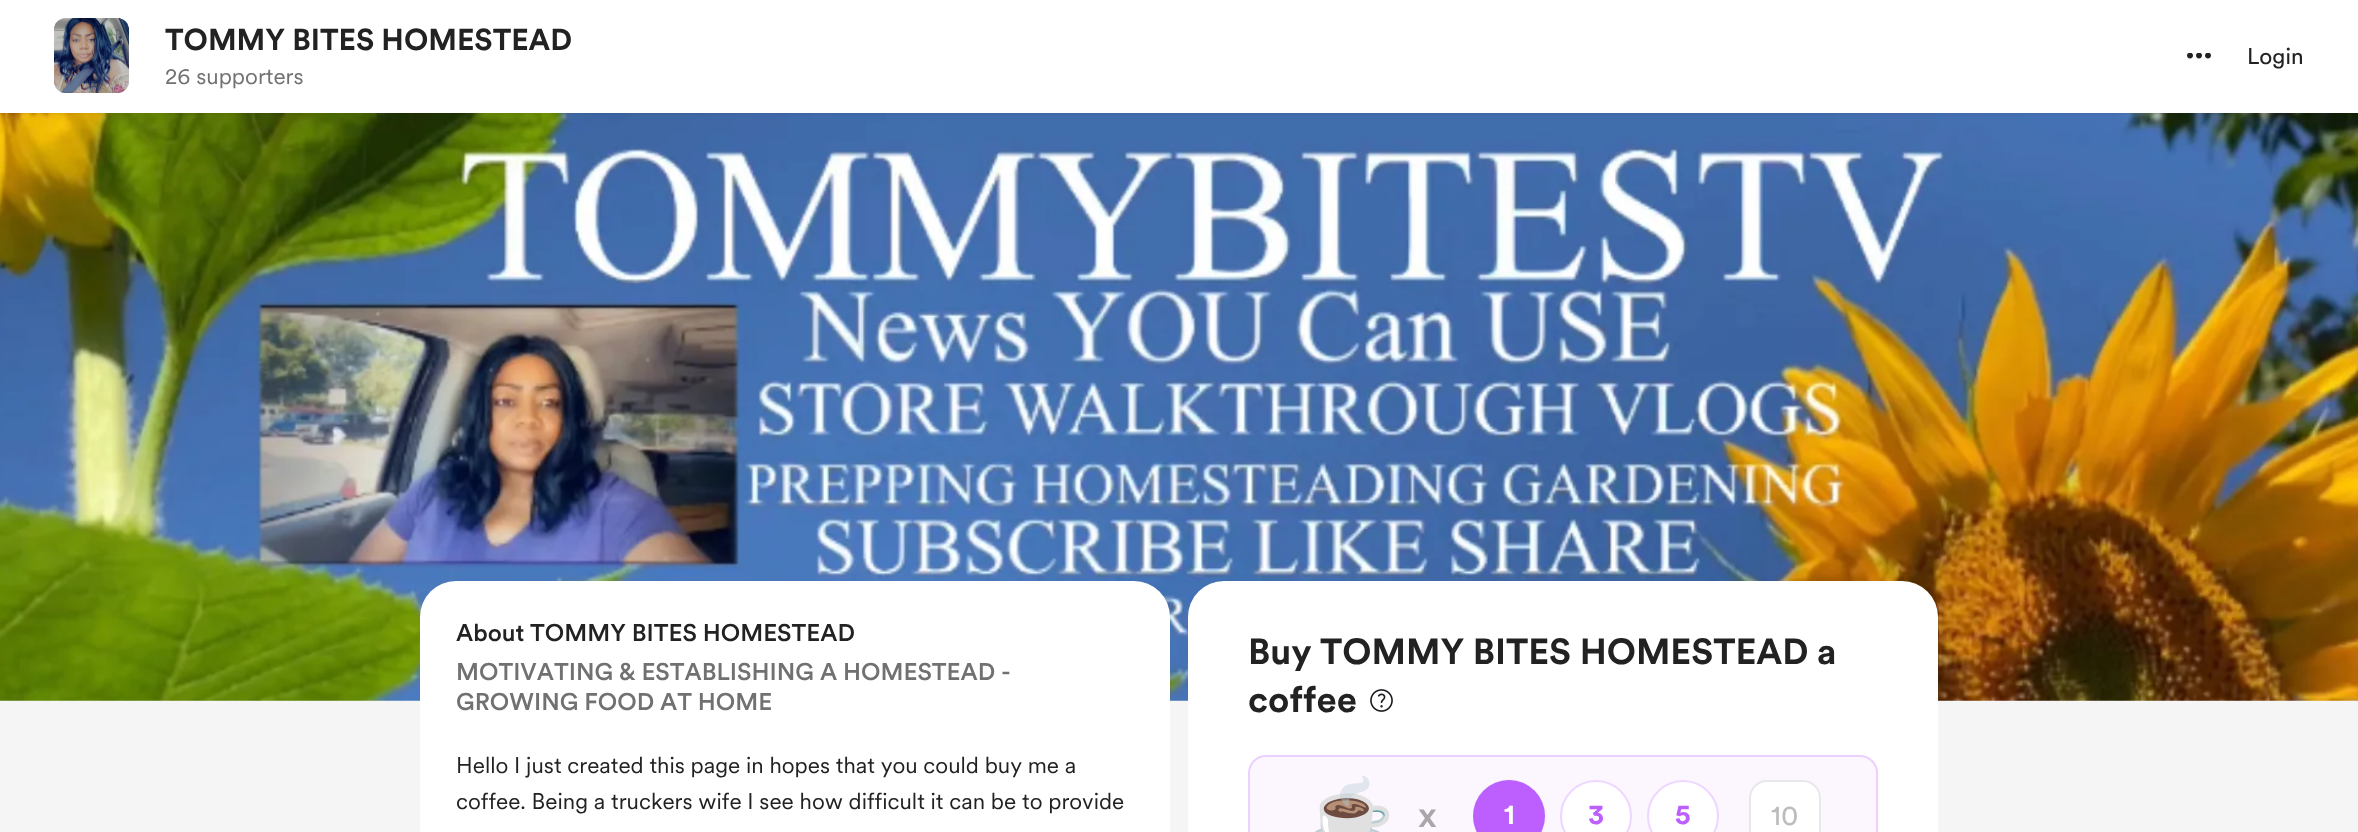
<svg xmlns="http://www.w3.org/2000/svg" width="2358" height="832">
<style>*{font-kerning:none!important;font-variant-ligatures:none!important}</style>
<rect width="100%" height="100%" fill="#f5f5f5"/>
<image x="0" y="700" width="2358" height="1" href="media/4.png"/>
<image x="0" y="113" width="2358" height="588" href="media/5.png"/>
<rect y="2" width="2358" height="112" fill="#0000000f" filter="blur(1px)"/>
<rect width="2358" height="113" fill="#fff"/>
<image x="54" y="18" width="75" height="75" href="media/1.png"/>
<image x="54" y="18" width="75" height="75" href="media/2.png"/>
<text x="165" y="50" style="font-family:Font;font-size:30px;font-weight:bold;fill:#222">TOMMY BITES HOMESTEAD</text>
<text x="165" y="84" style="font-family:Font;font-size:22.5px;fill:#717171">26 supporters</text>
<image x="2187" y="53" width="24" height="6" href="media/3.png"/>
<text x="2247" y="64" style="font-family:'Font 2';font-size:22.5px;fill:#222">Login</text>
<rect x="420" y="581" width="750" height="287" rx="36" fill="#fff"/>
<text x="456" y="641" style="font-family:Font;font-size:24px;font-weight:500;fill:#222">About TOMMY BITES HOMESTEAD</text>
<text x="456" y="680" style="font-family:Font;font-size:24px;font-weight:500;fill:#717171">MOTIVATING &amp; ESTABLISHING</text>
<text x="820" y="680" style="font-family:Font;font-size:24px;font-weight:500;fill:#717171">A HOMESTEAD -</text>
<text x="456" y="710" style="font-family:Font;font-size:24px;font-weight:500;fill:#717171">GROWING FOOD AT HOME</text>
<text x="456" y="773" style="font-family:Font;font-size:22.5px;fill:#222">Hello I just created this page in hopes that you could buy me a</text>
<text x="456" y="809" style="font-family:Font;font-size:22.5px;fill:#222">coffee. Being a truckers wife I see how difficult it can be</text>
<text x="1022" y="809" style="font-family:Font;font-size:22.5px;fill:#222">to provide</text>
<rect x="1188" y="581" width="750" height="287" rx="36" fill="#fff"/>
<text x="1248" y="664" style="font-family:Font;font-size:36px;font-weight:bold;fill:#222">Buy TOMMY BITES HOMESTEAD a</text>
<text x="1248" y="712" style="font-family:Font;font-size:36px;font-weight:bold;fill:#222">coffee</text>
<image x="1370" y="689" width="23" height="23" href="media/6.png"/>
<rect x="1248" y="755" width="630" height="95" rx="18" fill="#fcf7ff"/>
<rect x="1249" y="756" width="628" height="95" rx="17" fill="none" stroke="#bd5fff40" stroke-width="2"/>
<text x="1305" y="841" style="font-family:Noto Color Emoji;font-size:72px;fill:#000">☕</text>
<text x="1418" y="827" style="font-family:Font;font-size:36px;font-weight:500;fill:#a9a7aa">x</text>
<circle cx="1509" cy="816" r="36" fill="#bd5fff"/>
<circle cx="1509" cy="816" r="35" fill="none" stroke="#bd5fff40" stroke-width="2"/>
<text x="1504" y="824" style="font-family:Font;font-size:28px;font-weight:bold;fill:#fff">1</text>
<circle cx="1596" cy="816" r="36" fill="#fff"/>
<circle cx="1596" cy="816" r="35" fill="none" stroke="#bd5fff40" stroke-width="2"/>
<text x="1588" y="824" style="font-family:Font;font-size:28px;font-weight:bold;fill:#bd5fff">3</text>
<circle cx="1683" cy="816" r="36" fill="#fff"/>
<circle cx="1683" cy="816" r="35" fill="none" stroke="#bd5fff40" stroke-width="2"/>
<text x="1675" y="824" style="font-family:Font;font-size:28px;font-weight:bold;fill:#bd5fff">5</text>
<rect x="1749" y="780" width="72" height="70" rx="18" fill="#fff"/>
<rect x="1750" y="781" width="70" height="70" rx="17" fill="none" stroke="#2222221a" stroke-width="2"/>
<text x="1771" y="825" style="font-family:'Font 2';font-size:28px;fill:#bdbdbd">10</text>
</svg>
